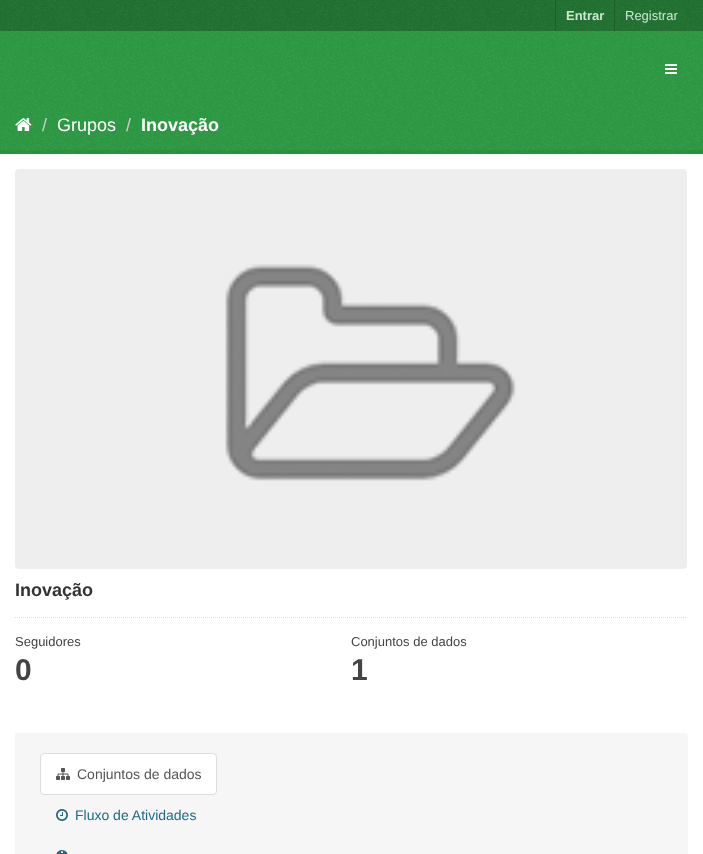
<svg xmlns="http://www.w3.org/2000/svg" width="703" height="854">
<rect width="100%" height="100%" fill="#2f9b45"/>
<image x="0" y="108" width="703" height="46" href="media/1.png"/>
<rect width="703" height="31" fill="#237434"/>
<image x="0" y="0" width="703" height="31" href="media/2.png"/>
<rect x="555" width="1" height="31" fill="#1d602b"/>
<text x="566" y="20" style="font-family:Liberation Sans;font-size:13px;font-weight:bold;fill:#cbe6d1">Entrar</text>
<rect x="614" width="1" height="31" fill="#1d602b"/>
<text x="625" y="20" style="font-family:Liberation Sans;font-size:13px;fill:#cbe6d1">Registrar</text>
<image x="0" y="31" width="703" height="77" href="media/3.png"/>
<image x="665" y="64" width="12" height="10" href="media/4.png"/>
<image x="15" y="118" width="17" height="13" href="media/5.png"/>
<text x="42" y="131" style="font-family:Liberation Sans;font-size:18px;fill:#ccc">/</text>
<text x="57" y="131" style="font-family:Liberation Sans;font-size:18px;fill:#fff">Grupos</text>
<text x="126" y="131" style="font-family:Liberation Sans;font-size:18px;fill:#ccc">/</text>
<text x="141" y="131" style="font-family:Liberation Sans;font-size:18px;font-weight:bold;fill:#fff">Inovação</text>
<rect x="-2" y="152" width="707" height="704" fill="none" stroke="#0000000d" stroke-width="4"/>
<rect y="154" width="703" height="700" fill="#fff"/>
<image x="15" y="169" width="672" height="400" href="media/6.png"/>
<text x="15" y="596" style="font-family:Liberation Sans;font-size:18px;font-weight:bold;fill:#333">Inovação</text>
<path d="M15 617.5h672" fill="none" stroke="#ddd" stroke-dasharray="1 1"/>
<text x="15" y="646" style="font-family:Liberation Sans;font-size:13px;fill:#444">Seguidores</text>
<text x="15" y="680" style="font-family:Liberation Sans;font-size:30px;font-weight:bold;fill:#444">0</text>
<text x="351" y="646" style="font-family:Liberation Sans;font-size:13px;fill:#444">Conjuntos de dados</text>
<text x="351" y="680" style="font-family:Liberation Sans;font-size:30px;font-weight:bold;fill:#444">1</text>
<path d="M15 733h670c1.5 0 3 1.5 3 3v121h-673z" fill="#f6f6f6"/>
<rect x="40.5" y="753.5" width="176" height="41" rx="3.5" fill="#fff" stroke="#ddd"/>
<image x="56" y="768" width="14" height="12" href="media/7.png"/>
<text x="77" y="779" style="font-family:Liberation Sans;font-size:14px;fill:#555">Conjuntos de dados</text>
<image x="56" y="809" width="12" height="12" href="media/8.png"/>
<text x="75" y="820" style="font-family:Liberation Sans;font-size:14px;fill:#206b82">Fluxo de Atividades</text>
<image x="56" y="850" width="12" height="4" href="media/9.png"/>
</svg>
